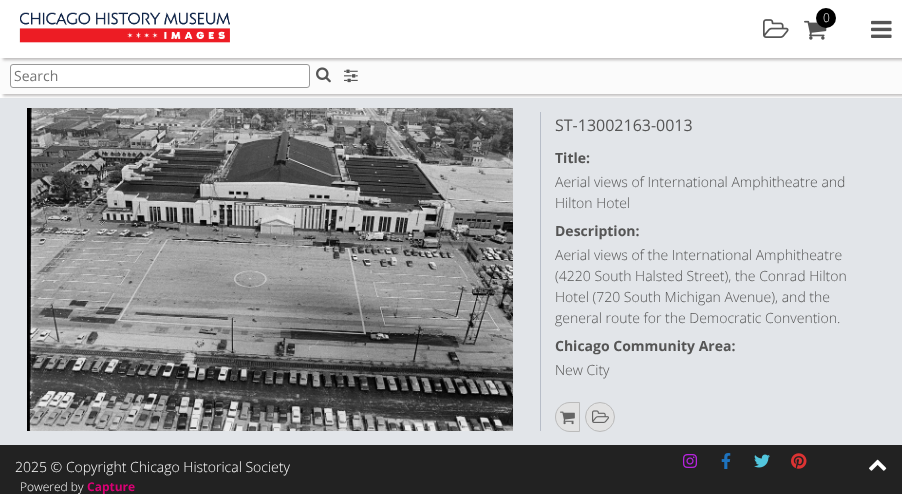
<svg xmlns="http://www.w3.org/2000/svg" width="902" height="494">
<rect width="100%" height="100%" fill="#fff"/>
<rect y="98" width="902" height="347" fill="#e2e5e9"/>
<rect x="3" y="60" width="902" height="36" fill="#4a454559" filter="blur(1.5px)"/>
<rect y="58" width="902" height="36" fill="#fbfbfb"/>
<rect x="10.5" y="64.5" width="299" height="23" rx="2.5" fill="#fff" stroke="#999"/>
<rect x="3" y="2" width="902" height="58" fill="#4a454559" filter="blur(1.5px)"/>
<rect width="902" height="58" fill="#fff"/>
<image x="19" y="12" width="211" height="31" href="media/1.png"/>
<image x="804" y="20" width="23" height="20" href="media/2.png"/>
<circle cx="826" cy="18" r="10" fill="#000"/>
<text x="823" y="22" style="font-family:Open Sans;font-size:12px;font-weight:300;fill:#fff">0</text>
<image x="763" y="19" width="26" height="19" href="media/3.png"/>
<image x="871" y="20" width="21" height="18" href="media/4.png"/>
<text x="14" y="81" style="font-family:Open Sans;font-size:14px;fill:#757575">Search</text>
<image x="316" y="67" width="15" height="16" href="media/5.png"/>
<image x="344" y="69" width="14" height="14" href="media/6.png"/>
<rect x="540" y="112" width="1" height="319" fill="#b7bdc8"/>
<image x="27" y="108" width="486" height="323" href="media/7.png"/>
<text x="555" y="131" style="font-family:Open Sans;font-size:16px;fill:#555">ST-13002163-0013</text>
<text x="555" y="163" style="font-family:Open Sans;font-size:14px;font-weight:bold;fill:#555">Title:</text>
<text x="555" y="187" style="font-family:Open Sans;font-size:14px;font-weight:300;fill:#555">Aerial views of International Amphitheatre and</text>
<text x="555" y="208" style="font-family:Open Sans;font-size:14px;font-weight:300;fill:#555">Hilton Hotel</text>
<text x="555" y="236" style="font-family:Open Sans;font-size:14px;font-weight:bold;fill:#555">Description:</text>
<text x="555" y="260" style="font-family:Open Sans;font-size:14px;font-weight:300;fill:#555">Aerial views of the International Amphitheatre</text>
<text x="555" y="281" style="font-family:Open Sans;font-size:14px;font-weight:300;fill:#555">(4220 South Halsted Street), the Conrad Hilton</text>
<text x="555" y="302" style="font-family:Open Sans;font-size:14px;font-weight:300;fill:#555">Hotel (720 South Michigan Avenue), and the</text>
<text x="555" y="323" style="font-family:Open Sans;font-size:14px;font-weight:300;fill:#555">general route for the Democratic Convention.</text>
<text x="555" y="351" style="font-family:Open Sans;font-size:14px;font-weight:bold;fill:#555">Chicago Community Area:</text>
<text x="555" y="375" style="font-family:Open Sans;font-size:14px;font-weight:300;fill:#555">New City</text>
<path d="M570 402.5h9.5v29h-9.5c-8 0-14.5-6.5-14.5-14.5c0-8 6.5-14.5 14.5-14.5z" fill="#e2e2e2" stroke="#bbb"/>
<image x="560" y="411" width="15" height="14" href="media/8.png"/>
<circle cx="600" cy="417" r="14.5" fill="#e2e2e2" stroke="#bbb"/>
<image x="592" y="410" width="17" height="13" href="media/9.png"/>
<rect y="445" width="902" height="49" fill="#222"/>
<text x="15" y="472" style="font-family:Open Sans;font-size:14px;font-weight:300;fill:#fff">2025 © Copyright Chicago Historical Society</text>
<text x="20" y="491" style="font-family:Open Sans;font-size:12px;font-weight:300;fill:#fff">Powered by</text>
<text x="87" y="491" style="font-family:Open Sans;font-size:12px;font-weight:bold;fill:#db0074">Capture</text>
<image x="683" y="454" width="14" height="14" href="media/10.png"/>
<image x="721" y="453" width="10" height="16" href="media/11.png"/>
<image x="754" y="454" width="16" height="14" href="media/12.png"/>
<image x="791" y="453" width="16" height="16" href="media/13.png"/>
<image x="869" y="459" width="18" height="12" href="media/14.png"/>
</svg>
